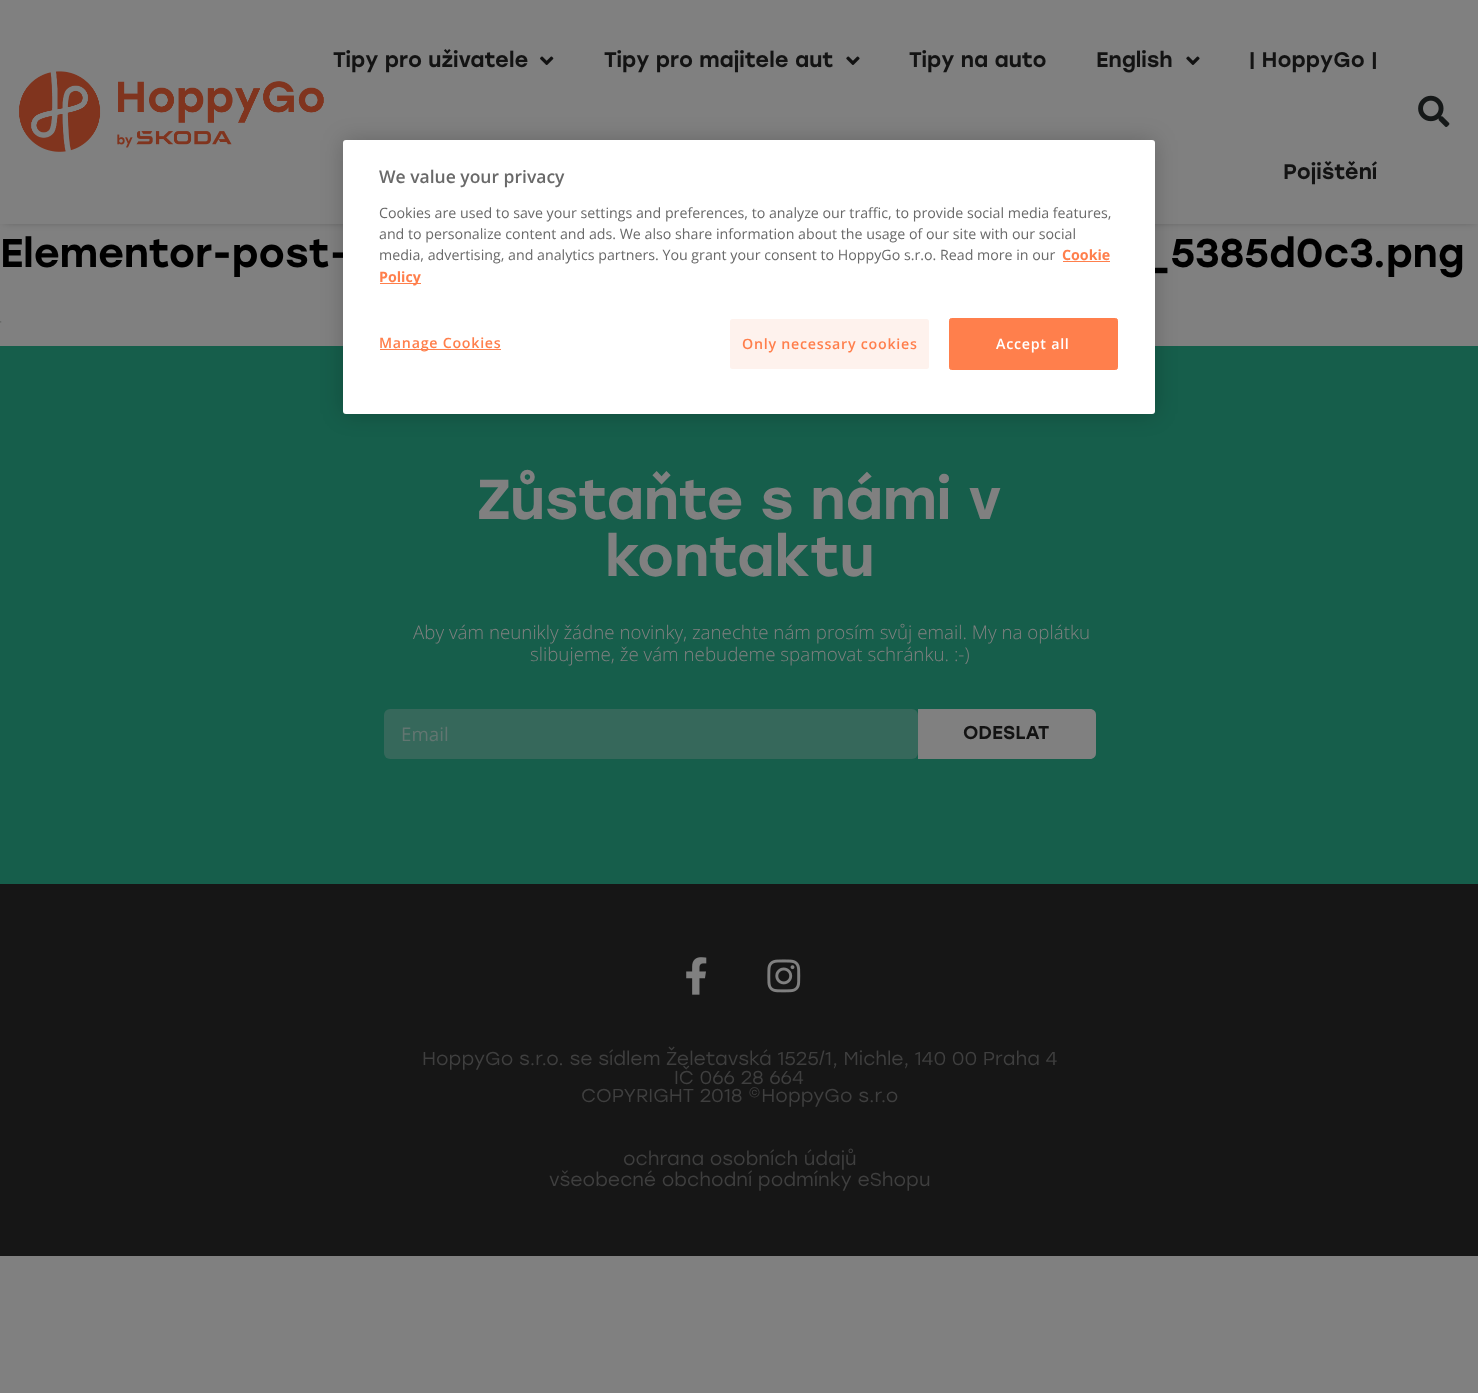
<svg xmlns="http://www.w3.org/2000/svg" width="1478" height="1393">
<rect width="100%" height="100%" fill="#808080"/>
<rect x="4" y="4" width="1471" height="216" fill="#00000080" filter="blur(5px)"/>
<rect width="1478" height="224" fill="#808080"/>
<image x="19" y="71" width="305" height="81" href="media/1.png"/>
<text x="333" y="67" style="font-family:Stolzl;font-size:21.25px;font-weight:500;fill:#131313">Tipy pro uživatele</text>
<image x="540" y="56" width="14" height="9" href="media/2.png"/>
<text x="604" y="67" style="font-family:Stolzl;font-size:21.25px;font-weight:500;fill:#131313">Tipy pro majitele aut</text>
<image x="846" y="56" width="14" height="9" href="media/3.png"/>
<text x="909" y="67" style="font-family:Stolzl;font-size:21.25px;font-weight:500;fill:#131313">Tipy na auto</text>
<text x="1096" y="67" style="font-family:Stolzl;font-size:21.25px;font-weight:500;fill:#131313">English</text>
<image x="1186" y="56" width="14" height="9" href="media/3.png"/>
<text x="1249" y="67" style="font-family:Stolzl;font-size:21.25px;font-weight:500;fill:#131313">| HoppyGo |</text>
<text x="1283" y="179" style="font-family:Stolzl;font-size:21.25px;font-weight:500;fill:#131313">Pojištění</text>
<image x="1418" y="95" width="32" height="32" href="media/4.png"/>
<rect y="346" width="1478" height="538" fill="#165e4b"/>
<rect x="343" y="140" width="812" height="274" rx="3" fill="#00000033" filter="blur(11px)"/>
<text x="0" y="267" style="font-family:Stolzl;font-size:40px;font-weight:500;fill:#000">Elementor-post-</text>
<text x="1146" y="267" style="font-family:Stolzl;font-size:40px;font-weight:500;fill:#000">_5385d0c3.png</text>
<rect x="343" y="140" width="812" height="274" rx="3" fill="#fff"/>
<text x="379" y="183" style="font-family:Open Sans;font-size:17.5px;font-weight:600;fill:#696969">We value your privacy</text>
<text x="379" y="218" style="font-family:Open Sans;font-size:14.23px;fill:#696969">Cookies are used to save your settings and preferences, to analyze our traffic, to provide social media features,</text>
<text x="379" y="239" style="font-family:Open Sans;font-size:14.23px;fill:#696969">and to personalize content and ads. We also share information about the usage of our site with our social</text>
<text x="379" y="260" style="font-family:Open Sans;font-size:14.23px;fill:#696969">media, advertising, and analytics partners. You grant your consent to HoppyGo s.r.o. Read more in our</text>
<text x="1062" y="260" style="font-family:Open Sans;font-size:14.23px;font-weight:bold;fill:#ff7f4c">Cookie</text>
<rect x="1063" y="261" width="47" height="1" fill="#ff7f4c"/>
<rect x="380" y="283" width="41" height="1" fill="#ff7f4c"/>
<text x="379" y="282" style="font-family:Open Sans;font-size:14.23px;font-weight:bold;fill:#ff7f4c">Policy</text>
<rect x="380" y="349" width="121" height="1" fill="#ff7f4c"/>
<text x="379" y="348" style="font-family:Open Sans;font-size:14.23px;font-weight:600;letter-spacing:0.75px;fill:#ff7f4c">Manage Cookies</text>
<rect x="730" y="319" width="199" height="50" rx="2.5" fill="#fef2ed"/>
<text x="742" y="349" style="font-family:Open Sans;font-size:14.23px;font-weight:600;letter-spacing:0.75px;fill:#ff7f4c">Only necessary cookies</text>
<rect x="949.5" y="318.5" width="168" height="51" rx="2" fill="#ff7f4c" stroke="#ff7f4c"/>
<text x="996" y="349" style="font-family:Open Sans;font-size:14.23px;font-weight:600;letter-spacing:0.75px;fill:#fff">Accept all</text>
<image x="0" y="321" width="2" height="2" href="media/5.png"/>
<text x="477" y="519" style="font-family:Stolzl;font-size:56.25px;font-weight:500;fill:#808080">Zůstaňte s námi v</text>
<text x="605" y="576" style="font-family:Stolzl;font-size:56.25px;font-weight:500;fill:#808080">kontaktu</text>
<text x="413" y="639" style="font-family:Open Sans;font-size:18.75px;font-weight:300;fill:#808080">Aby vám neunikly žádne novinky, zanechte nám prosím svůj email. My na oplátku</text>
<text x="530" y="661" style="font-family:Open Sans;font-size:18.75px;font-weight:300;fill:#808080">slibujeme, že vám nebudeme spamovat schránku. :-)</text>
<rect x="384" y="709" width="534" height="50" rx="6" fill="#36685b"/>
<text x="401" y="741" style="font-family:Open Sans;font-size:18.75px;fill:#627671">Email</text>
<path d="M918 709h172c3.5 0 6 2.5 6 6v38c0 3.5-2.5 6-6 6h-172z" fill="#808080"/>
<text x="963" y="739" style="font-family:Stolzl;font-size:18.75px;font-weight:500;fill:#131313">ODESLAT</text>
<rect y="884" width="1478" height="372" fill="#161616"/>
<image x="686" y="957" width="21" height="38" href="media/6.png"/>
<image x="767" y="959" width="34" height="34" href="media/7.png"/>
<text x="422" y="1065" style="font-family:Stolzl;font-size:18.75px;fill:#3f3f3f">HoppyGo s.r.o. se sídlem Želetavská 1525/1, Michle, 140 00 Praha 4</text>
<text x="674" y="1084" style="font-family:Stolzl;font-size:18.75px;fill:#3f3f3f">IČ 066 28 664</text>
<text x="581" y="1102" style="font-family:Stolzl;font-size:18.75px;fill:#3f3f3f">COPYRIGHT 2018 ©HoppyGo s.r.o</text>
<text x="623" y="1165" style="font-family:Stolzl;font-size:18.75px;fill:#3f3f3f">ochrana osobních údajů</text>
<text x="549" y="1186" style="font-family:Stolzl;font-size:18.75px;fill:#3f3f3f">všeobecné obchodní podmínky eShopu</text>
</svg>
